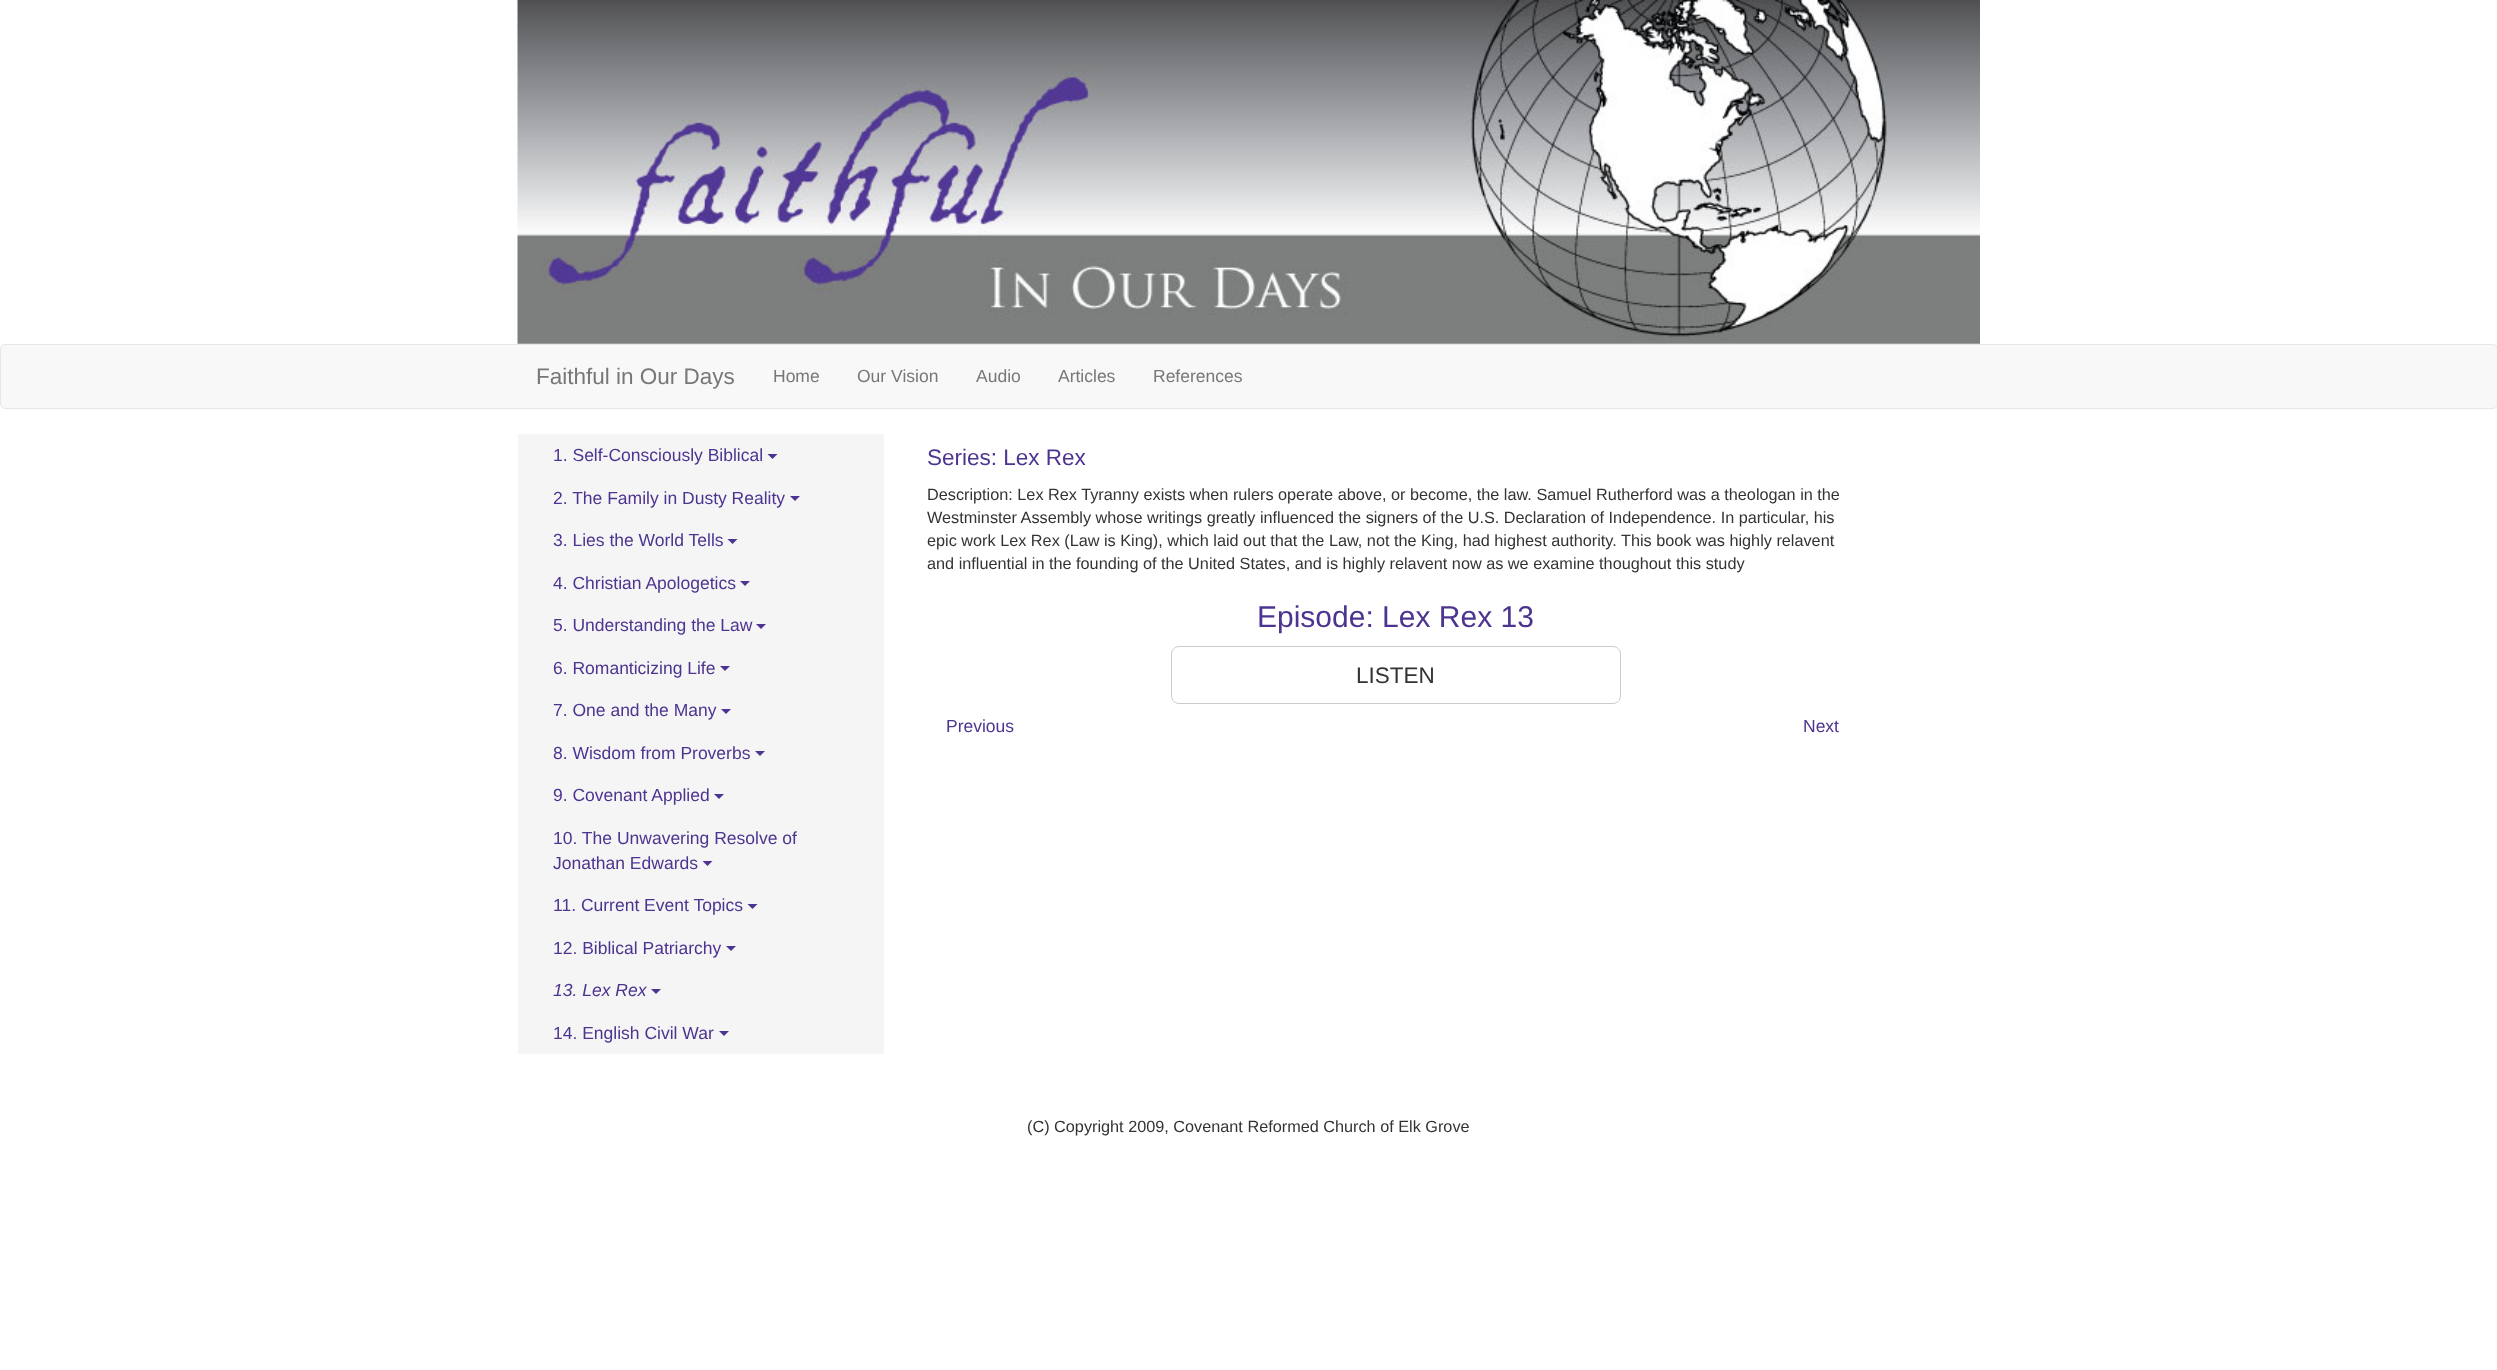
<svg xmlns="http://www.w3.org/2000/svg" width="2497" height="1370">
<rect width="100%" height="100%" fill="#fff"/>
<image x="517" y="0" width="1463" height="344" href="media/1.png"/>
<rect x="0.5" y="344.5" width="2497" height="64" rx="4.5" fill="#f8f8f8" stroke="#e7e7e7"/>
<text x="536" y="384" style="font-family:Liberation Sans;font-size:22.5px;fill:#777">Faithful in Our Days</text>
<text x="773" y="382" style="font-family:Liberation Sans;font-size:17.5px;fill:#777">Home</text>
<text x="857" y="382" style="font-family:Liberation Sans;font-size:17.5px;fill:#777">Our Vision</text>
<text x="976" y="382" style="font-family:Liberation Sans;font-size:17.5px;fill:#777">Audio</text>
<text x="1058" y="382" style="font-family:Liberation Sans;font-size:17.5px;fill:#777">Articles</text>
<text x="1153" y="382" style="font-family:Liberation Sans;font-size:17.5px;fill:#777">References</text>
<rect x="518" y="434" width="366" height="620" fill="#f5f5f5"/>
<text x="553" y="461" style="font-family:Liberation Sans;font-size:17.5px;fill:#4d3490">1. Self-Consciously Biblical</text>
<path d="M767.5 454h10l-5 5z" fill="#4d3490"/>
<text x="553" y="504" style="font-family:Liberation Sans;font-size:17.5px;fill:#4d3490">2. The Family in Dusty Reality</text>
<path d="M790 496h10l-5 5z" fill="#4d3490"/>
<text x="553" y="546" style="font-family:Liberation Sans;font-size:17.5px;fill:#4d3490">3. Lies the World Tells</text>
<path d="M727.5 539h10l-5 5z" fill="#4d3490"/>
<text x="553" y="589" style="font-family:Liberation Sans;font-size:17.5px;fill:#4d3490">4. Christian Apologetics</text>
<path d="M740 581h10l-5 5z" fill="#4d3490"/>
<text x="553" y="631" style="font-family:Liberation Sans;font-size:17.5px;fill:#4d3490">5. Understanding the Law</text>
<path d="M756 624h10l-5 5z" fill="#4d3490"/>
<text x="553" y="674" style="font-family:Liberation Sans;font-size:17.5px;fill:#4d3490">6. Romanticizing Life</text>
<path d="M720 666h10l-5 5z" fill="#4d3490"/>
<text x="553" y="716" style="font-family:Liberation Sans;font-size:17.5px;fill:#4d3490">7. One and the Many</text>
<path d="M721 709h10l-5 5z" fill="#4d3490"/>
<text x="553" y="759" style="font-family:Liberation Sans;font-size:17.5px;fill:#4d3490">8. Wisdom from Proverbs</text>
<path d="M755 751h10l-5 5z" fill="#4d3490"/>
<text x="553" y="801" style="font-family:Liberation Sans;font-size:17.5px;fill:#4d3490">9. Covenant Applied</text>
<path d="M714 794h10l-5 5z" fill="#4d3490"/>
<text x="553" y="844" style="font-family:Liberation Sans;font-size:17.5px;fill:#4d3490">10. The Unwavering Resolve of</text>
<text x="553" y="869" style="font-family:Liberation Sans;font-size:17.5px;fill:#4d3490">Jonathan Edwards</text>
<path d="M702.5 861h10l-5 5z" fill="#4d3490"/>
<text x="553" y="911" style="font-family:Liberation Sans;font-size:17.5px;fill:#4d3490">11. Current Event Topics</text>
<path d="M747.5 904h10l-5 5z" fill="#4d3490"/>
<text x="553" y="954" style="font-family:Liberation Sans;font-size:17.5px;fill:#4d3490">12. Biblical Patriarchy</text>
<path d="M726 946h10l-5 5z" fill="#4d3490"/>
<text x="553" y="996" style="font-family:Liberation Sans;font-size:17.5px;font-style:italic;fill:#4d3490">13. Lex Rex</text>
<path d="M651 989h10l-5 5z" fill="#4d3490"/>
<text x="553" y="1039" style="font-family:Liberation Sans;font-size:17.5px;fill:#4d3490">14. English Civil War</text>
<path d="M719 1031h10l-5 5z" fill="#4d3490"/>
<text x="927" y="465" style="font-family:Liberation Sans;font-size:22.5px;fill:#4d3490">Series: Lex Rex</text>
<text x="927" y="500" style="font-family:Liberation Sans;font-size:16.25px;fill:#333">Description: Lex Rex Tyranny exists when rulers operate above, or become, the law. Samuel Rutherford was a theologan in the</text>
<text x="927" y="523" style="font-family:Liberation Sans;font-size:16.25px;fill:#333">Westminster Assembly whose writings greatly influenced the signers of the U.S. Declaration of Independence. In particular, his</text>
<text x="927" y="546" style="font-family:Liberation Sans;font-size:16.25px;fill:#333">epic work Lex Rex (Law is King), which laid out that the Law, not the King, had highest authority. This book was highly relavent</text>
<text x="927" y="569" style="font-family:Liberation Sans;font-size:16.25px;fill:#333">and influential in the founding of the United States, and is highly relavent now as we examine thoughout this study</text>
<text x="1257" y="627" style="font-family:Liberation Sans;font-size:30px;fill:#4d3490">Episode: Lex Rex 13</text>
<rect x="1171.5" y="646.5" width="449" height="57" rx="7.5" fill="none" stroke="#ccc"/>
<text x="1356" y="683" style="font-family:Liberation Sans;font-size:22.5px;fill:#333">LISTEN</text>
<text x="946" y="732" style="font-family:Liberation Sans;font-size:17.5px;fill:#4d3490">Previous</text>
<text x="1803" y="732" style="font-family:Liberation Sans;font-size:17.5px;fill:#4d3490">Next</text>
<text x="1027" y="1132" style="font-family:Liberation Sans;font-size:16.25px;fill:#333">(C) Copyright 2009, Covenant Reformed Church of Elk Grove</text>
</svg>
